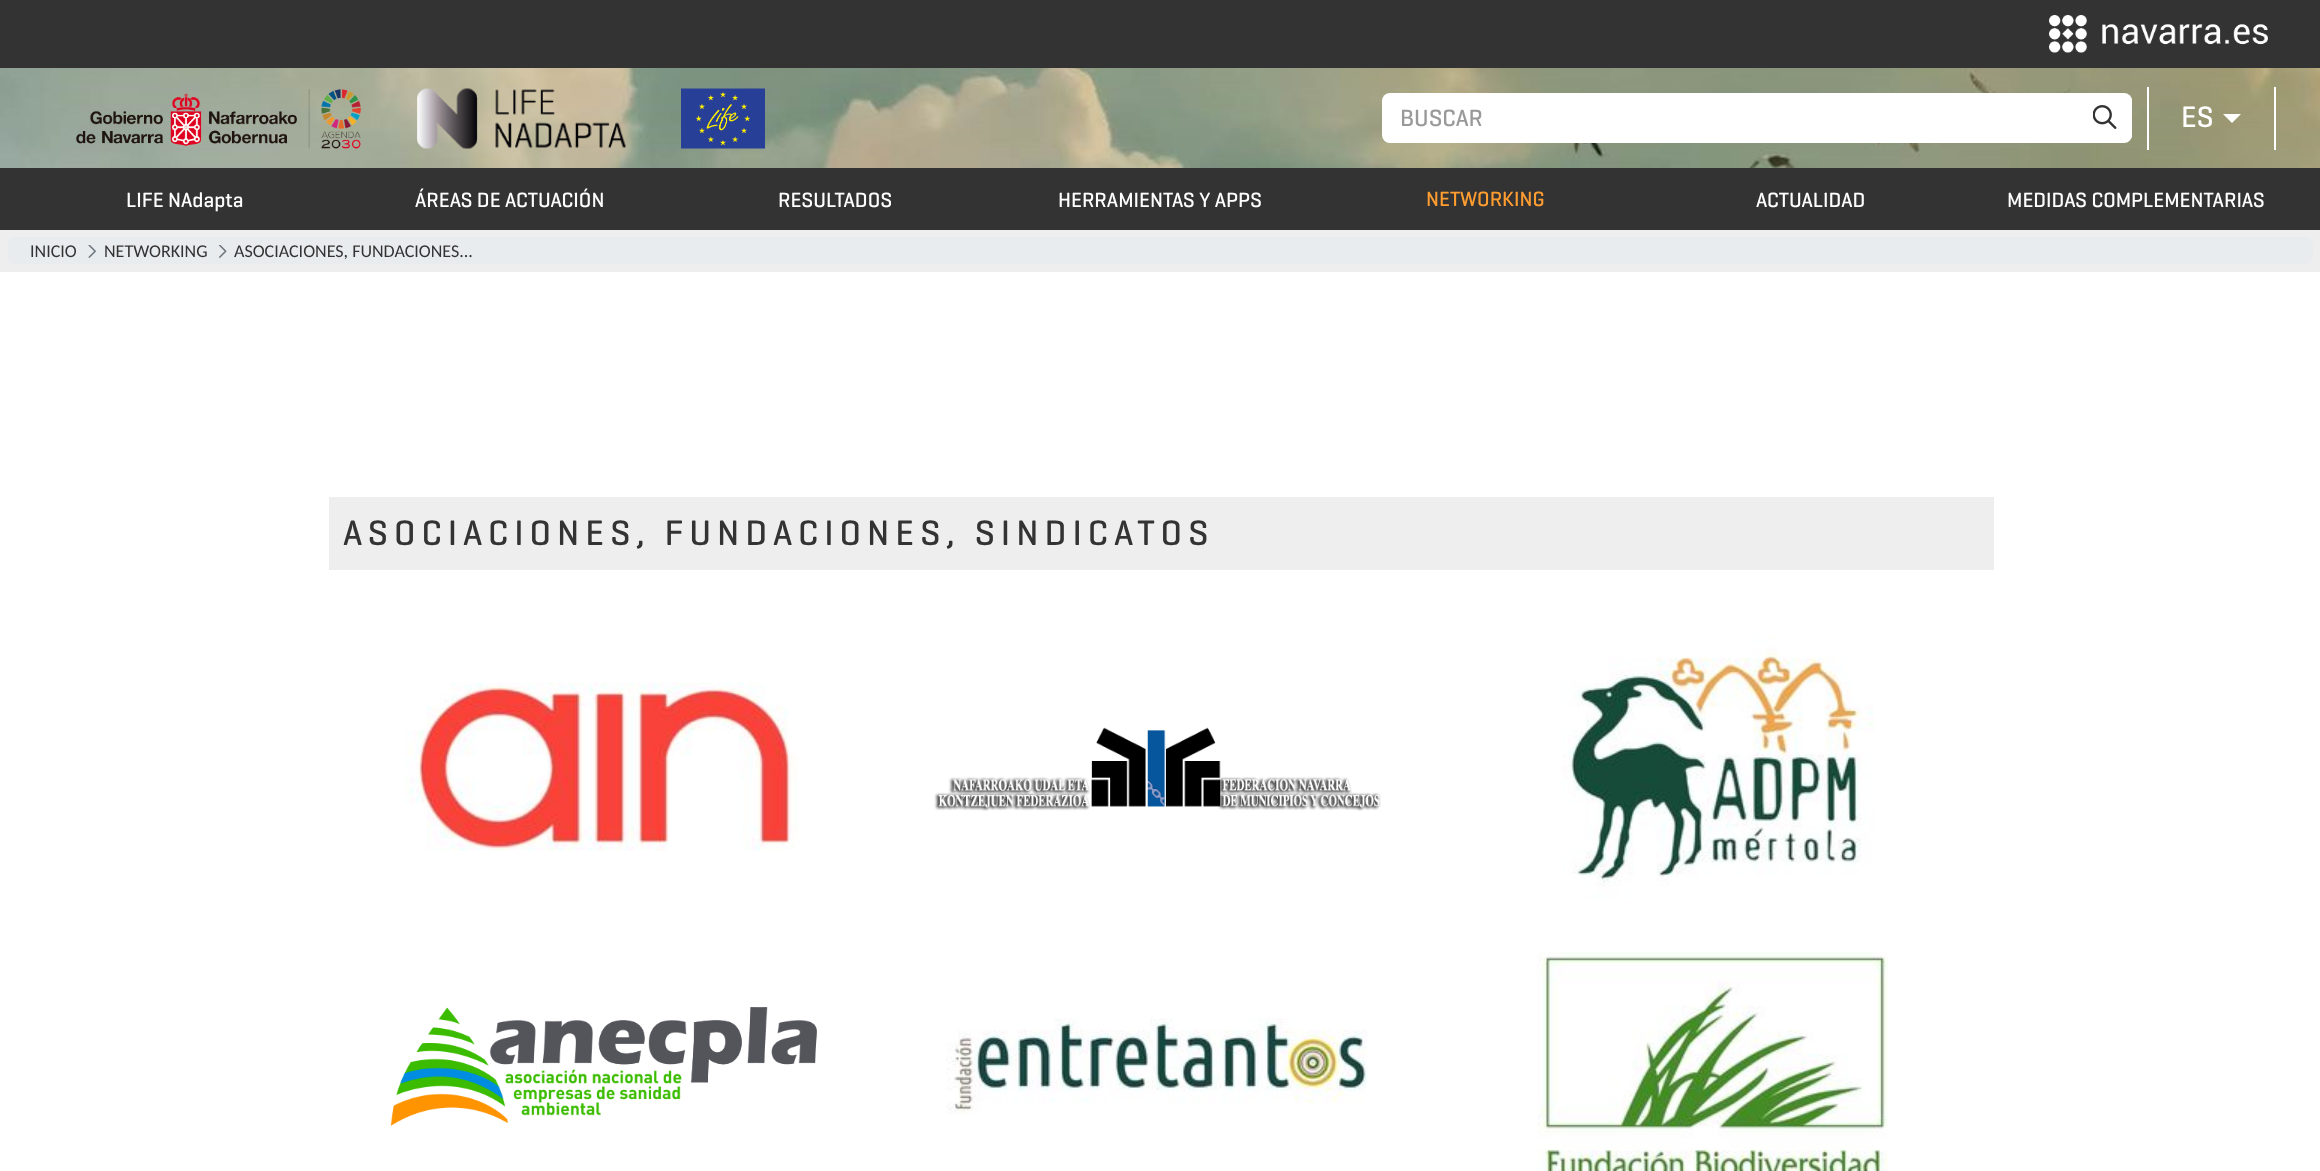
<svg xmlns="http://www.w3.org/2000/svg" width="2320" height="1171">
<rect width="100%" height="100%" fill="#fff"/>
<rect width="2320" height="68" fill="#333"/>
<image x="2049" y="15" width="219" height="38" href="media/1.png"/>
<image x="0" y="68" width="2320" height="100" href="media/2.png"/>
<image x="76" y="89" width="285" height="60" href="media/3.png"/>
<image x="417" y="88" width="209" height="61" href="media/4.png"/>
<image x="681" y="88" width="84" height="61" href="media/5.png"/>
<rect x="2147" y="87" width="2" height="63" fill="#fff"/>
<rect x="1382" y="93" width="750" height="50" rx="8" fill="#fff"/>
<text x="1400" y="126" style="font-family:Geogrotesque;font-size:24px;font-weight:500;fill:#999">BUSCAR</text>
<path d="M2078 95h48c3.5 0 6 2.5 6 6v34c0 3.5-2.5 6-6 6h-48z" fill="#fff"/>
<image x="2093" y="105" width="24" height="24" href="media/6.png"/>
<rect x="2274" y="87" width="2" height="63" fill="#fff"/>
<text x="2181" y="127" style="font-family:Geogrotesque;font-size:30px;font-weight:500;fill:#fff">ES</text>
<path d="M2223 114h18l-9 9z" fill="#fff"/>
<rect y="168" width="2320" height="62" fill="#333"/>
<text x="126" y="207" style="font-family:Geogrotesque;font-size:21px;font-weight:500;fill:#fff">LIFE NAdapta</text>
<text x="415" y="207" style="font-family:Geogrotesque;font-size:21px;font-weight:500;fill:#fff">ÁREAS DE ACTUACIÓN</text>
<text x="778" y="207" style="font-family:Geogrotesque;font-size:21px;font-weight:500;fill:#fff">RESULTADOS</text>
<text x="1058" y="207" style="font-family:Geogrotesque;font-size:21px;font-weight:500;fill:#fff">HERRAMIENTAS Y APPS</text>
<text x="1426" y="206" style="font-family:Geogrotesque;font-size:21px;font-weight:500;fill:#ff9d30">NETWORKING</text>
<text x="1756" y="207" style="font-family:Geogrotesque;font-size:21px;font-weight:500;fill:#fff">ACTUALIDAD</text>
<text x="2007" y="207" style="font-family:Geogrotesque;font-size:21px;font-weight:500;fill:#fff">MEDIDAS COMPLEMENTARIAS</text>
<rect y="230" width="2320" height="42" fill="#eee"/>
<rect x="8" y="237" width="2305" height="27" rx="6" fill="#e9ecef"/>
<text x="30" y="257" style="font-family:Carlito;font-size:18px;fill:#333">INICIO</text>
<image x="88" y="245" width="8" height="13" href="media/7.png"/>
<text x="104" y="257" style="font-family:Carlito;font-size:18px;fill:#333">NETWORKING</text>
<image x="219" y="245" width="8" height="13" href="media/8.png"/>
<text x="234" y="257" style="font-family:Carlito;font-size:18px;fill:#333">ASOCIACIONES, FUNDACIONES...</text>
<rect x="329" y="497" width="1665" height="73" fill="#eee"/>
<text x="343" y="545" style="font-family:Geogrotesque;font-size:36px;font-weight:500;letter-spacing:6px;fill:#333">ASOCIACIONES, FUNDACIONES, SINDICATOS</text>
<image x="404" y="682" width="395" height="169" href="media/9.png"/>
<image x="934" y="727" width="447" height="84" href="media/10.png"/>
<image x="1562" y="635" width="312" height="263" href="media/11.png"/>
<image x="390" y="1007" width="427" height="119" href="media/12.png"/>
<image x="946" y="1018" width="422" height="97" href="media/13.png"/>
<image x="1537" y="952" width="351" height="219" href="media/14.png"/>
</svg>
